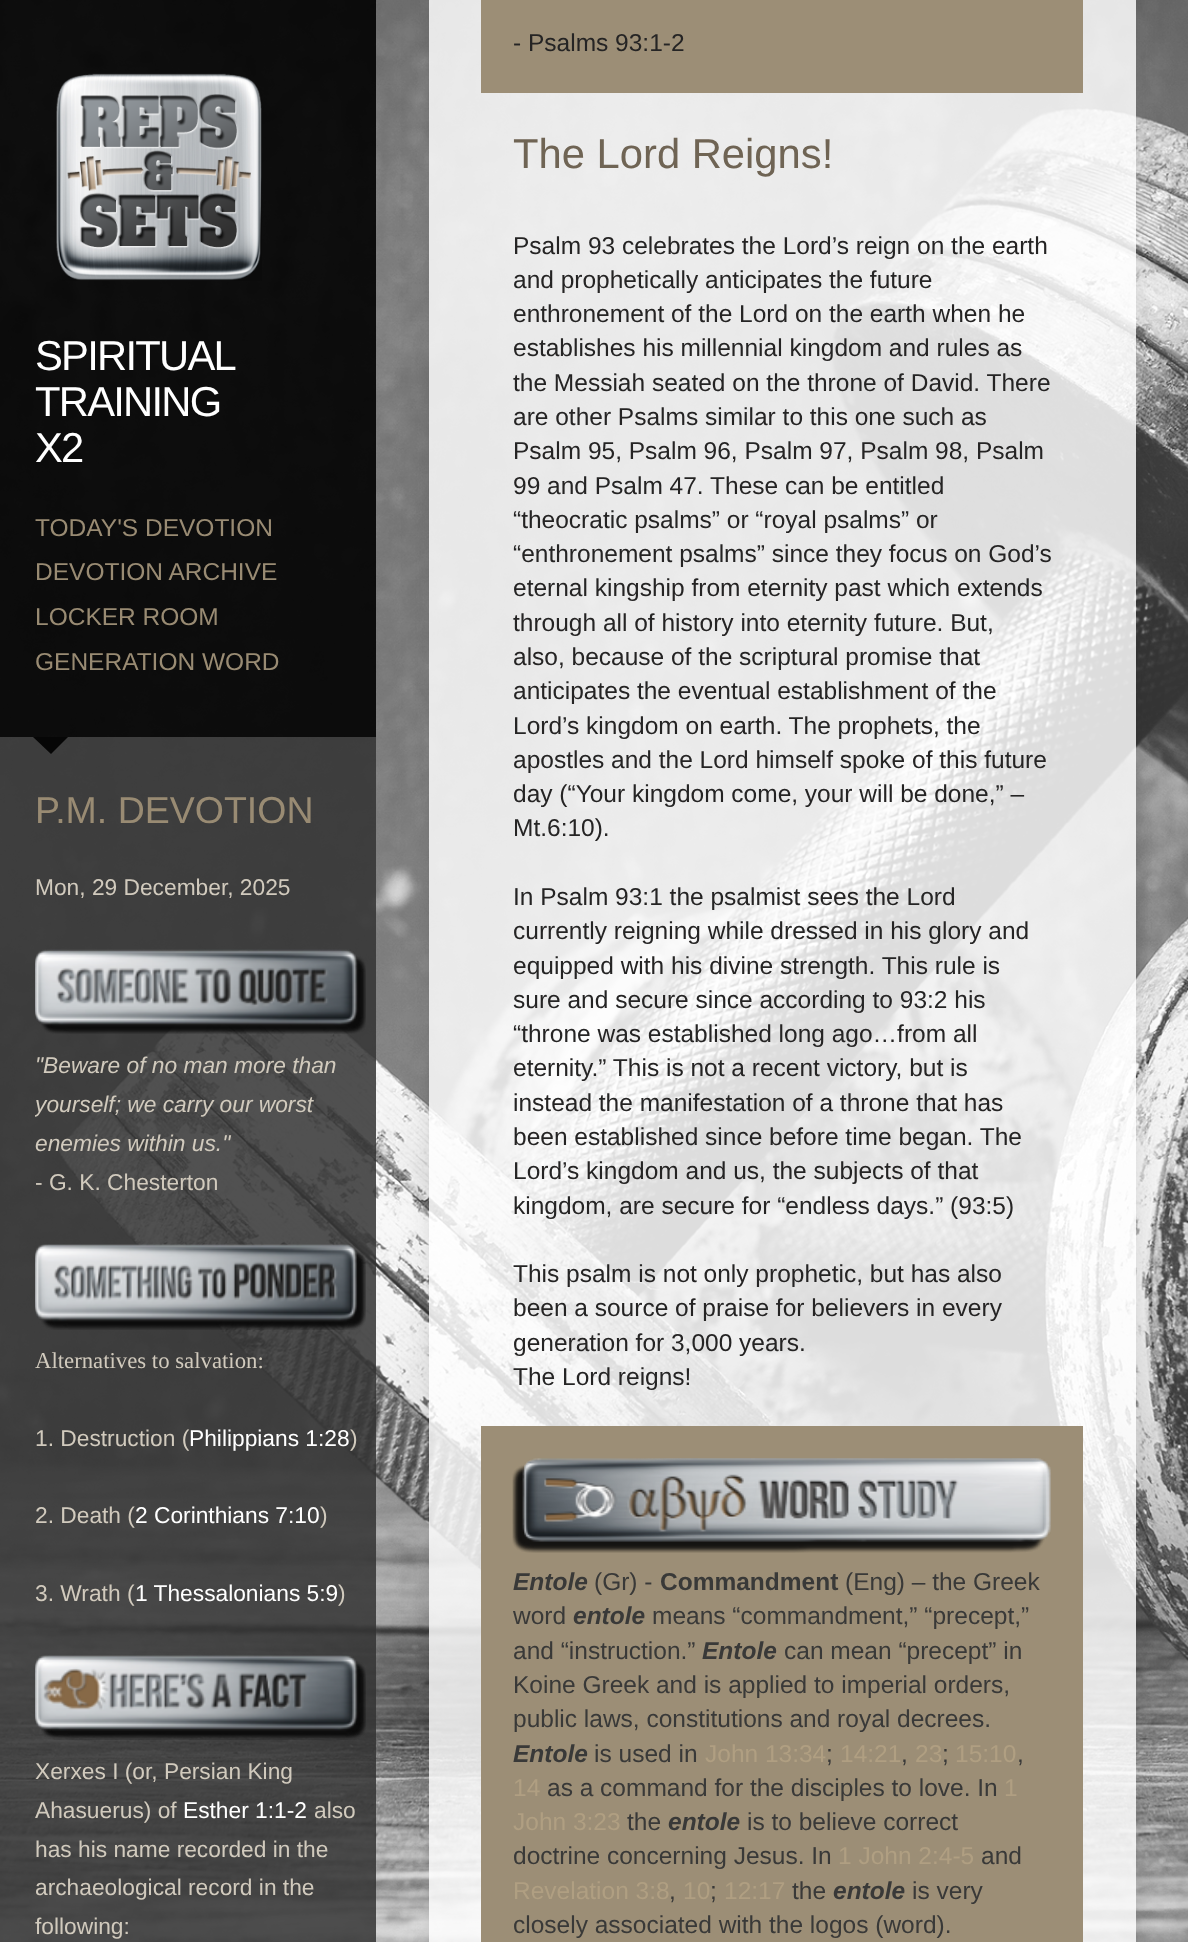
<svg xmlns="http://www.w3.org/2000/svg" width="1188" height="1942">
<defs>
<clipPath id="clip1"><rect x="35" y="1047" width="333" height="155"/></clipPath>
<clipPath id="clip2"><path d="M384 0h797v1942h-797zm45-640h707v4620h-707z" clip-rule="evenodd"/></clipPath>
</defs>
<rect width="100%" height="100%" fill="#fff"/>
<image x="0" y="0" width="1188" height="1942" href="media/1.png"/>
<rect width="376" height="737" fill="#000000e6"/>
<image x="56" y="73" width="206" height="208" href="media/2.png"/>
<text x="35" y="370" style="font-family:Liberation Sans;font-size:41.75px;letter-spacing:-1.75px;fill:#fff">SPIRITUAL</text>
<text x="35" y="416" style="font-family:Liberation Sans;font-size:41.75px;letter-spacing:-1.75px;fill:#fff">TRAINING</text>
<text x="35" y="462" style="font-family:Liberation Sans;font-size:41.75px;letter-spacing:-1.75px;fill:#fff">X2</text>
<text x="35" y="536" style="font-family:Liberation Sans;font-size:24.5px;fill:#998b73">TODAY'S DEVOTION</text>
<text x="35" y="580" style="font-family:Liberation Sans;font-size:24.5px;fill:#998b73">DEVOTION ARCHIVE</text>
<text x="35" y="625" style="font-family:Liberation Sans;font-size:24.5px;fill:#998b73">LOCKER ROOM</text>
<text x="35" y="670" style="font-family:Liberation Sans;font-size:24.5px;fill:#998b73">GENERATION WORD</text>
<rect y="737" width="376" height="1205" fill="#333333d9"/>
<path d="M33 737h35l-17 17z" fill="#060606"/>
<text x="35" y="823" style="font-family:Liberation Sans;font-size:37.5px;fill:#998b73">P.M. DEVOTION</text>
<text x="35" y="895" style="font-family:Liberation Sans;font-size:22.75px;fill:#d1cabd">Mon, 29 December, 2025</text>
<image x="35" y="949" width="331" height="85" href="media/3.png"/>
<image x="35" y="949" width="331" height="85" href="media/4.png"/>
<text x="35" y="1073" style="font-family:Liberation Sans;font-size:22.75px;font-style:italic;fill:#d1cabd">"Beware of no man more than</text>
<g clip-path="url(#clip1)">
<text x="35" y="1112" style="font-family:Liberation Sans;font-size:22.75px;font-style:italic;fill:#d1cabd">yourself; we carry our worst</text>
</g>
<text x="35" y="1151" style="font-family:Liberation Sans;font-size:22.75px;font-style:italic;fill:#d1cabd">enemies within us."</text>
<text x="35" y="1190" style="font-family:Liberation Sans;font-size:22.75px;fill:#d1cabd">- G. K. Chesterton</text>
<image x="35" y="1244" width="331" height="86" href="media/5.png"/>
<image x="35" y="1244" width="331" height="86" href="media/6.png"/>
<text x="35" y="1368" style="font-family:Liberation Serif;font-size:22.75px;fill:#d1cabd">Alternatives to salvation:</text>
<text x="35" y="1446" style="font-family:Liberation Sans;font-size:22.75px;fill:#d1cabd">1. Destruction (</text>
<text x="189" y="1446" style="font-family:Liberation Sans;font-size:22.75px;fill:#fff">Philippians 1:28</text>
<text x="350" y="1446" style="font-family:Liberation Sans;font-size:22.75px;fill:#d1cabd">)</text>
<text x="35" y="1523" style="font-family:Liberation Sans;font-size:22.75px;fill:#d1cabd">2. Death (</text>
<text x="135" y="1523" style="font-family:Liberation Sans;font-size:22.75px;fill:#fff">2 Corinthians 7:10</text>
<text x="320" y="1523" style="font-family:Liberation Sans;font-size:22.75px;fill:#d1cabd">)</text>
<text x="35" y="1601" style="font-family:Liberation Sans;font-size:22.75px;fill:#d1cabd">3. Wrath (</text>
<text x="135" y="1601" style="font-family:Liberation Sans;font-size:22.75px;fill:#fff">1 Thessalonians 5:9</text>
<text x="338" y="1601" style="font-family:Liberation Sans;font-size:22.75px;fill:#d1cabd">)</text>
<image x="35" y="1655" width="331" height="85" href="media/7.png"/>
<image x="35" y="1655" width="331" height="85" href="media/8.png"/>
<text x="35" y="1779" style="font-family:Liberation Sans;font-size:22.75px;fill:#d1cabd">Xerxes I (or, Persian King</text>
<text x="35" y="1818" style="font-family:Liberation Sans;font-size:22.75px;fill:#d1cabd">Ahasuerus) of</text>
<text x="183" y="1818" style="font-family:Liberation Sans;font-size:22.75px;fill:#fff">Esther 1:1-2</text>
<text x="314" y="1818" style="font-family:Liberation Sans;font-size:22.75px;fill:#d1cabd">also</text>
<text x="35" y="1857" style="font-family:Liberation Sans;font-size:22.75px;fill:#d1cabd">has his name recorded in the</text>
<text x="35" y="1895" style="font-family:Liberation Sans;font-size:22.75px;fill:#d1cabd">archaeological record in the</text>
<text x="35" y="1934" style="font-family:Liberation Sans;font-size:22.75px;fill:#d1cabd">following:</text>
<g clip-path="url(#clip2)">
<rect x="438" y="-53" width="689" height="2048" fill="#00000033" filter="blur(17.5px)"/>
</g>
<rect x="429" width="707" height="1942" fill="#ffffffd4"/>
<rect x="481" width="602" height="93" fill="#9a8c73fa"/>
<text x="513" y="51" style="font-family:Liberation Sans;font-size:24.5px;fill:#252424">- Psalms 93:1-2</text>
<text x="513" y="168" style="font-family:Liberation Sans;font-size:41.75px;fill:#6f6454">The Lord Reigns!</text>
<text x="513" y="254" style="font-family:Liberation Sans;font-size:24.5px;fill:#252424">Psalm 93 celebrates the Lord’s reign on the earth</text>
<text x="513" y="288" style="font-family:Liberation Sans;font-size:24.5px;fill:#252424">and prophetically anticipates the future</text>
<text x="513" y="322" style="font-family:Liberation Sans;font-size:24.5px;fill:#252424">enthronement of the Lord on the earth when he</text>
<text x="513" y="356" style="font-family:Liberation Sans;font-size:24.5px;fill:#252424">establishes his millennial kingdom and rules as</text>
<text x="513" y="391" style="font-family:Liberation Sans;font-size:24.5px;fill:#252424">the Messiah seated on the throne of David. There</text>
<text x="513" y="425" style="font-family:Liberation Sans;font-size:24.5px;fill:#252424">are other Psalms similar to this one such as</text>
<text x="513" y="459" style="font-family:Liberation Sans;font-size:24.5px;fill:#252424">Psalm 95, Psalm 96, Psalm 97, Psalm 98, Psalm</text>
<text x="513" y="494" style="font-family:Liberation Sans;font-size:24.5px;fill:#252424">99 and Psalm 47. These can be entitled</text>
<text x="513" y="528" style="font-family:Liberation Sans;font-size:24.5px;fill:#252424">“theocratic psalms” or “royal psalms” or</text>
<text x="513" y="562" style="font-family:Liberation Sans;font-size:24.5px;fill:#252424">“enthronement psalms” since they focus on God’s</text>
<text x="513" y="596" style="font-family:Liberation Sans;font-size:24.5px;fill:#252424">eternal kingship from eternity past which extends</text>
<text x="513" y="631" style="font-family:Liberation Sans;font-size:24.5px;fill:#252424">through all of history into eternity future. But,</text>
<text x="513" y="665" style="font-family:Liberation Sans;font-size:24.5px;fill:#252424">also, because of the scriptural promise that</text>
<text x="513" y="699" style="font-family:Liberation Sans;font-size:24.5px;fill:#252424">anticipates the eventual establishment of the</text>
<text x="513" y="734" style="font-family:Liberation Sans;font-size:24.5px;fill:#252424">Lord’s kingdom on earth. The prophets, the</text>
<text x="513" y="768" style="font-family:Liberation Sans;font-size:24.5px;fill:#252424">apostles and the Lord himself spoke of this future</text>
<text x="513" y="802" style="font-family:Liberation Sans;font-size:24.5px;fill:#252424">day (“Your kingdom come, your will be done,” –</text>
<text x="513" y="836" style="font-family:Liberation Sans;font-size:24.5px;fill:#252424">Mt.6:10).</text>
<text x="513" y="905" style="font-family:Liberation Sans;font-size:24.5px;fill:#252424">In Psalm 93:1 the psalmist sees the Lord</text>
<text x="513" y="939" style="font-family:Liberation Sans;font-size:24.5px;fill:#252424">currently reigning while dressed in his glory and</text>
<text x="513" y="974" style="font-family:Liberation Sans;font-size:24.5px;fill:#252424">equipped with his divine strength. This rule is</text>
<text x="513" y="1008" style="font-family:Liberation Sans;font-size:24.5px;fill:#252424">sure and secure since according to 93:2 his</text>
<text x="513" y="1042" style="font-family:Liberation Sans;font-size:24.5px;fill:#252424">“throne was established long ago…from all</text>
<text x="513" y="1076" style="font-family:Liberation Sans;font-size:24.5px;fill:#252424">eternity.” This is not a recent victory, but is</text>
<text x="513" y="1111" style="font-family:Liberation Sans;font-size:24.5px;fill:#252424">instead the manifestation of a throne that has</text>
<text x="513" y="1145" style="font-family:Liberation Sans;font-size:24.5px;fill:#252424">been established since before time began. The</text>
<text x="513" y="1179" style="font-family:Liberation Sans;font-size:24.5px;fill:#252424">Lord’s kingdom and us, the subjects of that</text>
<text x="513" y="1214" style="font-family:Liberation Sans;font-size:24.5px;fill:#252424">kingdom, are secure for “endless days.” (93:5)</text>
<text x="513" y="1282" style="font-family:Liberation Sans;font-size:24.5px;fill:#252424">This psalm is not only prophetic, but has also</text>
<text x="513" y="1316" style="font-family:Liberation Sans;font-size:24.5px;fill:#252424">been a source of praise for believers in every</text>
<text x="513" y="1351" style="font-family:Liberation Sans;font-size:24.5px;fill:#252424">generation for 3,000 years.</text>
<text x="513" y="1385" style="font-family:Liberation Sans;font-size:24.5px;fill:#252424">The Lord reigns!</text>
<rect x="481" y="1426" width="602" height="516" fill="#9a8c73fa"/>
<image x="512" y="1458" width="539" height="95" href="media/9.png"/>
<image x="512" y="1458" width="539" height="95" href="media/10.png"/>
<text x="513" y="1590" style="font-family:Liberation Sans;font-size:24.5px;font-weight:bold;font-style:italic;fill:#393938">Entole</text>
<text x="594" y="1590" style="font-family:Liberation Sans;font-size:24.5px;fill:#393938">(Gr) -</text>
<text x="660" y="1590" style="font-family:Liberation Sans;font-size:24.5px;font-weight:bold;fill:#393938">Commandment</text>
<text x="845" y="1590" style="font-family:Liberation Sans;font-size:24.5px;fill:#393938">(Eng) – the Greek</text>
<text x="513" y="1624" style="font-family:Liberation Sans;font-size:24.5px;fill:#393938">word</text>
<text x="573" y="1624" style="font-family:Liberation Sans;font-size:24.5px;font-weight:bold;font-style:italic;fill:#393938">entole</text>
<text x="652" y="1624" style="font-family:Liberation Sans;font-size:24.5px;fill:#393938">means “commandment,” “precept,”</text>
<text x="513" y="1659" style="font-family:Liberation Sans;font-size:24.5px;fill:#393938">and “instruction.”</text>
<text x="702" y="1659" style="font-family:Liberation Sans;font-size:24.5px;font-weight:bold;font-style:italic;fill:#393938">Entole</text>
<text x="784" y="1659" style="font-family:Liberation Sans;font-size:24.5px;fill:#393938">can mean “precept” in</text>
<text x="513" y="1693" style="font-family:Liberation Sans;font-size:24.5px;fill:#393938">Koine Greek and is applied to imperial orders,</text>
<text x="513" y="1727" style="font-family:Liberation Sans;font-size:24.5px;fill:#393938">public laws, constitutions and royal decrees.</text>
<text x="513" y="1762" style="font-family:Liberation Sans;font-size:24.5px;font-weight:bold;font-style:italic;fill:#393938">Entole</text>
<text x="594" y="1762" style="font-family:Liberation Sans;font-size:24.5px;fill:#393938">is used in</text>
<text x="705" y="1762" style="font-family:Liberation Sans;font-size:24.5px;fill:#b09f82">John 13:34</text>
<text x="826" y="1762" style="font-family:Liberation Sans;font-size:24.5px;fill:#393938">;</text>
<text x="840" y="1762" style="font-family:Liberation Sans;font-size:24.5px;fill:#b09f82">14:21</text>
<text x="901" y="1762" style="font-family:Liberation Sans;font-size:24.5px;fill:#393938">,</text>
<text x="915" y="1762" style="font-family:Liberation Sans;font-size:24.5px;fill:#b09f82">23</text>
<text x="942" y="1762" style="font-family:Liberation Sans;font-size:24.5px;fill:#393938">;</text>
<text x="955" y="1762" style="font-family:Liberation Sans;font-size:24.5px;fill:#b09f82">15:10</text>
<text x="1017" y="1762" style="font-family:Liberation Sans;font-size:24.5px;fill:#393938">,</text>
<text x="513" y="1796" style="font-family:Liberation Sans;font-size:24.5px;fill:#b09f82">14</text>
<text x="547" y="1796" style="font-family:Liberation Sans;font-size:24.5px;fill:#393938">as a command for the disciples to love. In</text>
<text x="1004" y="1796" style="font-family:Liberation Sans;font-size:24.5px;fill:#b09f82">1</text>
<text x="513" y="1830" style="font-family:Liberation Sans;font-size:24.5px;fill:#b09f82">John 3:23</text>
<text x="627" y="1830" style="font-family:Liberation Sans;font-size:24.5px;fill:#393938">the</text>
<text x="668" y="1830" style="font-family:Liberation Sans;font-size:24.5px;font-weight:bold;font-style:italic;fill:#393938">entole</text>
<text x="747" y="1830" style="font-family:Liberation Sans;font-size:24.5px;fill:#393938">is to believe correct</text>
<text x="513" y="1864" style="font-family:Liberation Sans;font-size:24.5px;fill:#393938">doctrine concerning Jesus. In</text>
<text x="838" y="1864" style="font-family:Liberation Sans;font-size:24.5px;fill:#b09f82">1 John 2:4-5</text>
<text x="981" y="1864" style="font-family:Liberation Sans;font-size:24.5px;fill:#393938">and</text>
<text x="513" y="1899" style="font-family:Liberation Sans;font-size:24.5px;fill:#b09f82">Revelation 3:8</text>
<text x="669" y="1899" style="font-family:Liberation Sans;font-size:24.5px;fill:#393938">,</text>
<text x="683" y="1899" style="font-family:Liberation Sans;font-size:24.5px;fill:#b09f82">10</text>
<text x="710" y="1899" style="font-family:Liberation Sans;font-size:24.5px;fill:#393938">;</text>
<text x="724" y="1899" style="font-family:Liberation Sans;font-size:24.5px;fill:#b09f82">12:17</text>
<text x="792" y="1899" style="font-family:Liberation Sans;font-size:24.5px;fill:#393938">the</text>
<text x="833" y="1899" style="font-family:Liberation Sans;font-size:24.5px;font-weight:bold;font-style:italic;fill:#393938">entole</text>
<text x="912" y="1899" style="font-family:Liberation Sans;font-size:24.5px;fill:#393938">is very</text>
<text x="513" y="1933" style="font-family:Liberation Sans;font-size:24.5px;fill:#393938">closely associated with the logos (word).</text>
</svg>
